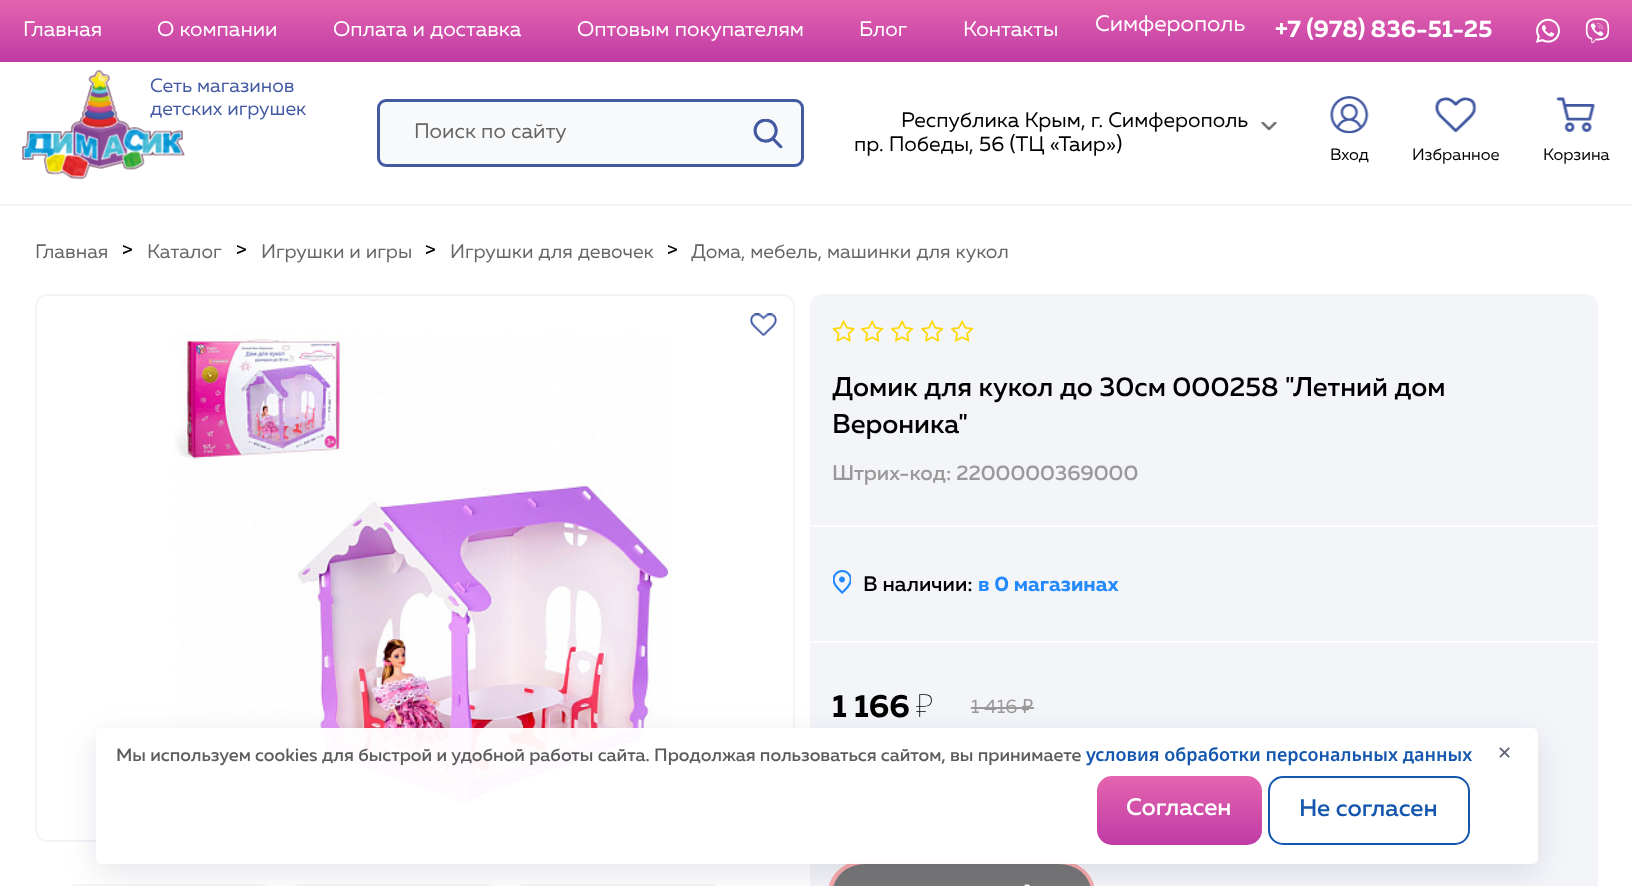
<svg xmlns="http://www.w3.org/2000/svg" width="1632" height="886">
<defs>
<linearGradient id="g1" gradientUnits="userSpaceOnUse" x1="816" y1="62" x2="816" y2="0"><stop offset="0" stop-color="#bf3ba6"/><stop offset="1" stop-color="#e464ae"/></linearGradient>
<clipPath id="clip1"><path d="M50 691h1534v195h-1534zm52 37h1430c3.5 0 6 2.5 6 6v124c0 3.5-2.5 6-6 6h-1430c-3.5 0-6-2.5-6-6v-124c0-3.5 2.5-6 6-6z" clip-rule="evenodd"/></clipPath>
<linearGradient id="g2" gradientUnits="userSpaceOnUse" x1="1178" y1="845" x2="1178" y2="776"><stop offset="0" stop-color="#bf3ba6"/><stop offset="1" stop-color="#e464ae"/></linearGradient>
</defs>
<rect width="100%" height="100%" fill="#fff"/>
<rect y="204" width="1632" height="2" fill="#f3f5f9"/>
<rect width="1632" height="62" fill="url(#g1)"/>
<text x="23" y="36" style="font-family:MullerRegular;font-size:21px;fill:#fff">Главная</text>
<text x="157" y="36" style="font-family:MullerRegular;font-size:21px;fill:#fff">О компании</text>
<text x="333" y="36" style="font-family:MullerRegular;font-size:21px;fill:#fff">Оплата и доставка</text>
<text x="577" y="36" style="font-family:MullerRegular;font-size:21px;fill:#fff">Оптовым покупателям</text>
<text x="859" y="36" style="font-family:MullerRegular;font-size:21px;fill:#fff">Блог</text>
<text x="963" y="36" style="font-family:MullerRegular;font-size:21px;fill:#fff">Контакты</text>
<text x="1095" y="31" style="font-family:MullerRegular;font-size:22.5px;fill:#fff">Симферополь</text>
<text x="1275" y="37" style="font-family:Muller;font-size:24px;font-weight:bold;fill:#fff">+7 (978) 836-51-25</text>
<image x="1536" y="18" width="24" height="25" href="media/1.png"/>
<image x="1585" y="18" width="25" height="26" href="media/2.png"/>
<image x="22" y="70" width="163" height="109" href="media/3.png"/>
<text x="150" y="92" style="font-family:MullerRegular;font-size:19.5px;fill:#435aa3">Сеть магазинов</text>
<text x="150" y="115" style="font-family:MullerRegular;font-size:19.5px;fill:#435aa3">детских игрушек</text>
<rect x="378.5" y="100.5" width="424" height="65" rx="7.5" fill="#f8f9fb" stroke="#435aa3" stroke-width="3"/>
<text x="414" y="138" style="font-family:MullerRegular;font-size:21px;fill:#666">Поиск по сайту</text>
<image x="753" y="118" width="30" height="31" href="media/4.png"/>
<text x="901" y="127" style="font-family:MullerRegular;font-size:21px;fill:#000">Республика Крым, г. Симферополь</text>
<text x="854" y="151" style="font-family:MullerRegular;font-size:21px;fill:#000">пр. Победы, 56 (ТЦ «Таир»)</text>
<image x="1261" y="121" width="16" height="10" href="media/5.png"/>
<image x="1330" y="96" width="39" height="38" href="media/6.png"/>
<text x="1330" y="160" style="font-family:MullerRegular;font-size:16.5px;fill:#000">Вход</text>
<image x="1435" y="97" width="42" height="35" href="media/7.png"/>
<text x="1412" y="160" style="font-family:MullerRegular;font-size:16.5px;fill:#000">Избранное</text>
<image x="1556" y="97" width="39" height="35" href="media/8.png"/>
<text x="1543" y="160" style="font-family:MullerRegular;font-size:16.5px;fill:#000">Корзина</text>
<text x="35" y="258" style="font-family:MullerRegular;font-size:19.5px;fill:#666">Главная</text>
<text x="121" y="258" style="font-family:MullerRegular;font-size:24px;fill:#000">&gt;</text>
<text x="147" y="258" style="font-family:MullerRegular;font-size:19.5px;fill:#666">Каталог</text>
<text x="235" y="258" style="font-family:MullerRegular;font-size:24px;fill:#000">&gt;</text>
<text x="261" y="258" style="font-family:MullerRegular;font-size:19.5px;fill:#666">Игрушки и игры</text>
<text x="424" y="258" style="font-family:MullerRegular;font-size:24px;fill:#000">&gt;</text>
<text x="450" y="258" style="font-family:MullerRegular;font-size:19.5px;fill:#666">Игрушки для девочек</text>
<text x="666" y="258" style="font-family:MullerRegular;font-size:24px;fill:#000">&gt;</text>
<text x="691" y="258" style="font-family:MullerRegular;font-size:19.5px;fill:#666">Дома, мебель, машинки для кукол</text>
<rect x="36" y="295" width="758" height="546" rx="11" fill="none" stroke="#f3f5f9" stroke-width="2"/>
<image x="750" y="313" width="27" height="23" href="media/9.png"/>
<image x="174" y="334" width="499" height="471" href="media/10.png"/>
<rect x="66" y="885" width="205" height="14" rx="11" fill="none" stroke="#f3f5f9" stroke-width="2"/>
<rect x="291" y="885" width="205" height="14" rx="11" fill="none" stroke="#f3f5f9" stroke-width="2"/>
<rect x="516" y="885" width="205" height="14" rx="11" fill="none" stroke="#f3f5f9" stroke-width="2"/>
<rect x="810" y="294" width="788" height="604" rx="12" fill="#f3f5f9"/>
<image x="832" y="320" width="23" height="22" href="media/11.png"/>
<image x="861" y="320" width="23" height="22" href="media/12.png"/>
<image x="891" y="320" width="23" height="22" href="media/12.png"/>
<image x="921" y="320" width="23" height="22" href="media/12.png"/>
<image x="951" y="320" width="23" height="22" href="media/12.png"/>
<text x="832" y="396" style="font-family:Muller;font-size:27px;font-weight:500;fill:#000">Домик для кукол до 30см 000258 "Летний дом</text>
<text x="832" y="433" style="font-family:Muller;font-size:27px;font-weight:500;fill:#000">Вероника"</text>
<text x="832" y="480" style="font-family:Muller;font-size:21px;font-weight:500;fill:#999">Штрих-код: 2200000369000</text>
<rect x="810" y="525" width="795" height="2" fill="#fff"/>
<image x="833" y="570" width="18" height="24" href="media/13.png"/>
<text x="863" y="591" style="font-family:Muller;font-size:21px;font-weight:500;fill:#000">В наличии:</text>
<text x="978" y="591" style="font-family:Muller;font-size:21px;font-weight:bold;fill:#2389fc">в 0 магазинах</text>
<rect x="810" y="641" width="795" height="2" fill="#fff"/>
<text x="832" y="717" style="font-family:Muller;font-size:32px;font-weight:bold;fill:#000">1</text>
<text x="854" y="717" style="font-family:Muller;font-size:32px;font-weight:bold;fill:#000">166</text>
<text x="916" y="717" style="font-family:Noto Sans;font-size:32px;font-weight:100;fill:#000">₽</text>
<text x="971" y="713" style="font-family:MullerRegular;font-size:19.5px;fill:#999">1 416</text>
<rect x="971" y="707" width="63" height="2" fill="#999"/>
<text x="1022" y="713" style="font-family:Noto Sans;font-size:19.5px;fill:#999">₽</text>
<rect x="833" y="759" width="115" height="50" rx="9" fill="#fff"/>
<rect x="830.5" y="862.5" width="262" height="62" rx="33.5" fill="none" stroke="#f7aaad" stroke-width="5"/>
<rect x="833" y="864" width="258" height="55" rx="32.5" fill="#777"/>
<image x="1024" y="884" width="6" height="2" href="media/14.png"/>
<g clip-path="url(#clip1)">
<rect x="96" y="737" width="1442" height="136" rx="6" fill="#0605321a" filter="blur(15px)"/>
</g>
<rect x="96" y="728" width="1442" height="136" rx="6" fill="#fffffff2"/>
<text x="116" y="761" style="font-family:Muller;font-size:18px;font-weight:500;fill:#5c5c5c">Мы используем cookies для быстрой и удобной работы сайта. Продолжая пользоваться сайтом, вы принимаете</text>
<text x="1086" y="761" style="font-family:Noto Sans;font-size:18px;font-weight:600;fill:#1557ae">условия обработки персональных данных</text>
<text x="1497" y="759" style="font-family:DejaVu Sans;font-size:18px;fill:#5c6370">✕</text>
<rect x="1097" y="776" width="165" height="69" rx="15" fill="url(#g2)"/>
<text x="1126" y="815" style="font-family:Muller;font-size:24px;font-weight:500;fill:#fff">Согласен</text>
<rect x="1269" y="777" width="200" height="67" rx="14" fill="none" stroke="#1557ae" stroke-width="2"/>
<text x="1299" y="816" style="font-family:Muller;font-size:24px;font-weight:500;fill:#1557ae">Не согласен</text>
</svg>
